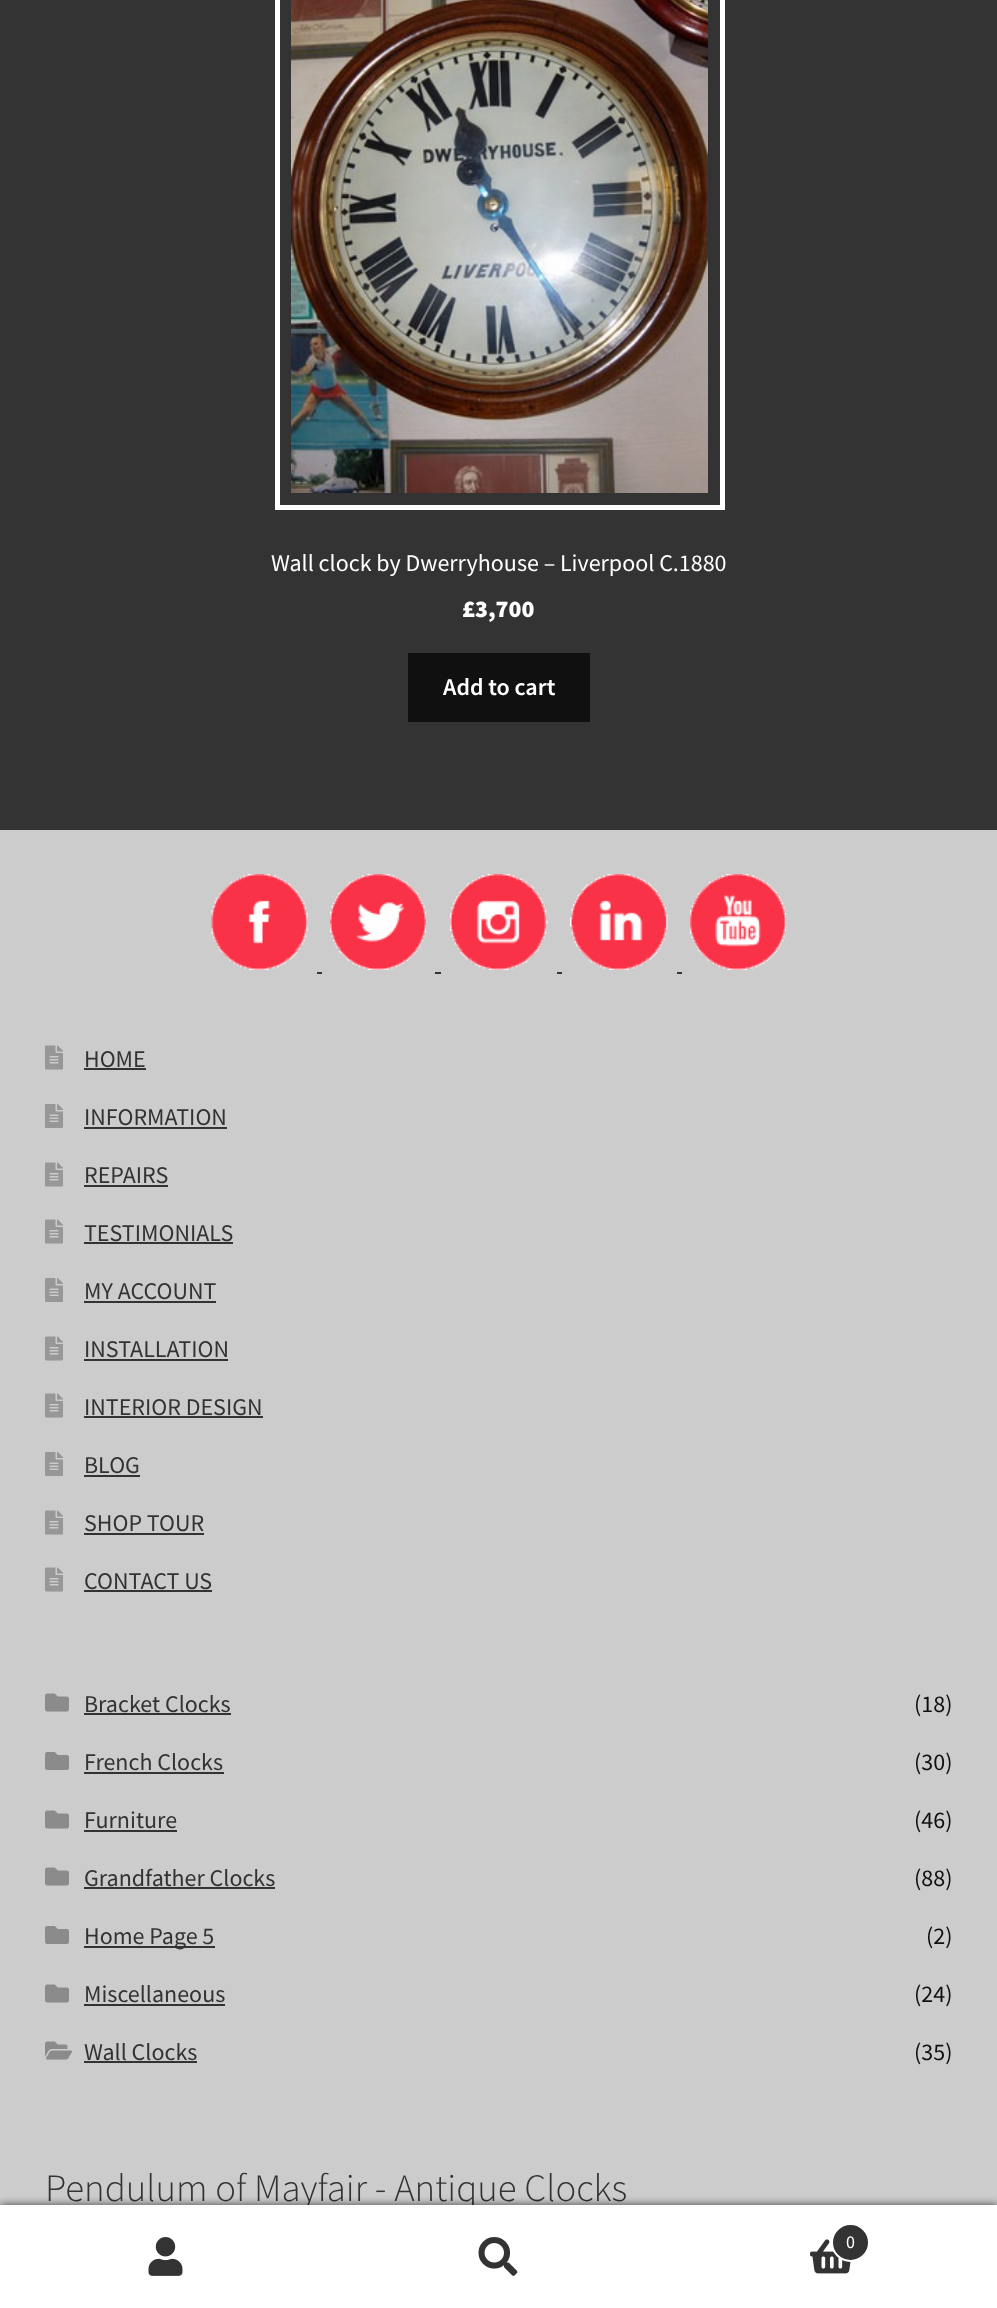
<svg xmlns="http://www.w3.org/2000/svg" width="997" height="2308">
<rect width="100%" height="100%" fill="#333"/>
<rect x="277.5" y="-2.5" width="445" height="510" fill="none" stroke="#fff" stroke-width="5"/>
<image x="291" y="0" width="417" height="493" href="media/1.png"/>
<text x="271" y="571" style="font-family:Source Sans Pro;font-size:24px;fill:#fff">Wall clock by Dwerryhouse – Liverpool C.1880</text>
<text x="462" y="617" style="font-family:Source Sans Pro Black;font-size:24px;font-weight:900;fill:#fff">£3,700</text>
<rect x="408" y="653" width="182" height="69" fill="#101010"/>
<text x="443" y="695" style="font-family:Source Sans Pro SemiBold;font-size:24px;font-weight:600;fill:#fff">Add to cart</text>
<rect y="830" width="997" height="1375" fill="#ccc"/>
<image x="211" y="874" width="97" height="96" href="media/2.png"/>
<rect x="317" y="972" width="5" height="2" fill="#333"/>
<image x="330" y="874" width="96" height="96" href="media/3.png"/>
<rect x="435" y="972" width="6" height="2" fill="#333"/>
<image x="450" y="874" width="98" height="96" href="media/4.png"/>
<rect x="557" y="972" width="5" height="2" fill="#333"/>
<image x="570" y="874" width="98" height="96" href="media/5.png"/>
<rect x="677" y="972" width="5" height="2" fill="#333"/>
<image x="690" y="874" width="96" height="96" href="media/6.png"/>
<image x="45" y="1045" width="18" height="25" href="media/7.png"/>
<text x="84" y="1067" style="font-family:Source Sans Pro;font-size:24px;fill:#333">HOME</text>
<rect x="84" y="1068" width="62" height="2" fill="#333"/>
<image x="45" y="1104" width="18" height="24" href="media/8.png"/>
<text x="84" y="1125" style="font-family:Source Sans Pro;font-size:24px;fill:#333">INFORMATION</text>
<rect x="84" y="1127" width="143" height="2" fill="#333"/>
<image x="45" y="1162" width="18" height="25" href="media/7.png"/>
<text x="84" y="1183" style="font-family:Source Sans Pro;font-size:24px;fill:#333">REPAIRS</text>
<rect x="84" y="1185" width="84" height="2" fill="#333"/>
<image x="45" y="1219" width="18" height="25" href="media/7.png"/>
<text x="84" y="1241" style="font-family:Source Sans Pro;font-size:24px;fill:#333">TESTIMONIALS</text>
<rect x="84" y="1242" width="149" height="2" fill="#333"/>
<image x="45" y="1278" width="18" height="24" href="media/8.png"/>
<text x="84" y="1299" style="font-family:Source Sans Pro;font-size:24px;fill:#333">MY ACCOUNT</text>
<rect x="84" y="1301" width="132" height="2" fill="#333"/>
<image x="45" y="1336" width="18" height="25" href="media/7.png"/>
<text x="84" y="1357" style="font-family:Source Sans Pro;font-size:24px;fill:#333">INSTALLATION</text>
<rect x="84" y="1359" width="144" height="2" fill="#333"/>
<image x="45" y="1393" width="18" height="25" href="media/7.png"/>
<text x="84" y="1415" style="font-family:Source Sans Pro;font-size:24px;fill:#333">INTERIOR DESIGN</text>
<rect x="84" y="1416" width="179" height="2" fill="#333"/>
<image x="45" y="1452" width="18" height="24" href="media/8.png"/>
<text x="84" y="1473" style="font-family:Source Sans Pro;font-size:24px;fill:#333">BLOG</text>
<rect x="84" y="1475" width="56" height="2" fill="#333"/>
<image x="45" y="1510" width="18" height="25" href="media/7.png"/>
<text x="84" y="1531" style="font-family:Source Sans Pro;font-size:24px;fill:#333">SHOP TOUR</text>
<rect x="84" y="1533" width="120" height="2" fill="#333"/>
<image x="45" y="1567" width="18" height="25" href="media/7.png"/>
<text x="84" y="1589" style="font-family:Source Sans Pro;font-size:24px;fill:#333">CONTACT US</text>
<rect x="84" y="1590" width="128" height="2" fill="#333"/>
<image x="45" y="1693" width="24" height="19" href="media/9.png"/>
<text x="84" y="1712" style="font-family:Source Sans Pro;font-size:24px;fill:#333">Bracket Clocks</text>
<rect x="84" y="1713" width="147" height="2" fill="#333"/>
<text x="914" y="1712" style="font-family:Source Sans Pro;font-size:24px;fill:#101010">(18)</text>
<image x="45" y="1752" width="24" height="18" href="media/10.png"/>
<text x="84" y="1770" style="font-family:Source Sans Pro;font-size:24px;fill:#333">French Clocks</text>
<rect x="84" y="1772" width="140" height="2" fill="#333"/>
<text x="914" y="1770" style="font-family:Source Sans Pro;font-size:24px;fill:#101010">(30)</text>
<image x="45" y="1810" width="24" height="19" href="media/9.png"/>
<text x="84" y="1828" style="font-family:Source Sans Pro;font-size:24px;fill:#333">Furniture</text>
<rect x="84" y="1830" width="93" height="2" fill="#333"/>
<text x="914" y="1828" style="font-family:Source Sans Pro;font-size:24px;fill:#101010">(46)</text>
<image x="45" y="1867" width="24" height="19" href="media/9.png"/>
<text x="84" y="1886" style="font-family:Source Sans Pro;font-size:24px;fill:#333">Grandfather Clocks</text>
<rect x="84" y="1887" width="191" height="2" fill="#333"/>
<text x="914" y="1886" style="font-family:Source Sans Pro;font-size:24px;fill:#101010">(88)</text>
<image x="45" y="1926" width="24" height="18" href="media/10.png"/>
<rect x="84" y="1946" width="131" height="2" fill="#333"/>
<text x="84" y="1944" style="font-family:Source Sans Pro;font-size:24px;fill:#333">Home Page 5</text>
<text x="926" y="1944" style="font-family:Source Sans Pro;font-size:24px;fill:#101010">(2)</text>
<image x="45" y="1984" width="24" height="19" href="media/9.png"/>
<text x="84" y="2002" style="font-family:Source Sans Pro;font-size:24px;fill:#333">Miscellaneous</text>
<rect x="84" y="2004" width="141" height="2" fill="#333"/>
<text x="914" y="2002" style="font-family:Source Sans Pro;font-size:24px;fill:#101010">(24)</text>
<image x="45" y="2041" width="27" height="19" href="media/11.png"/>
<text x="84" y="2060" style="font-family:Source Sans Pro;font-size:24px;fill:#333">Wall Clocks</text>
<rect x="84" y="2061" width="113" height="2" fill="#333"/>
<text x="914" y="2060" style="font-family:Source Sans Pro;font-size:24px;fill:#101010">(35)</text>
<text x="45" y="2201" style="font-family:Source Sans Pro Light;font-size:38.8px;font-weight:300;fill:#333">Pendulum of Mayfair - Antique Clocks</text>
<rect y="2205" width="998" height="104" fill="#000000b3" filter="blur(4.5px)"/>
<rect y="2205" width="997" height="2" fill="#fff"/>
<rect y="2207" width="997" height="101" fill="#fff"/>
<image x="148" y="2237" width="35" height="39" href="media/12.png"/>
<image x="478" y="2237" width="40" height="39" href="media/13.png"/>
<image x="810" y="2239" width="41" height="35" href="media/14.png"/>
<circle cx="850.5" cy="2242.5" r="18.5" fill="#333" stroke="#fff" stroke-width="2"/>
<text x="846" y="2248" style="font-family:Source Sans Pro;font-size:18px;fill:#fff">0</text>
</svg>
